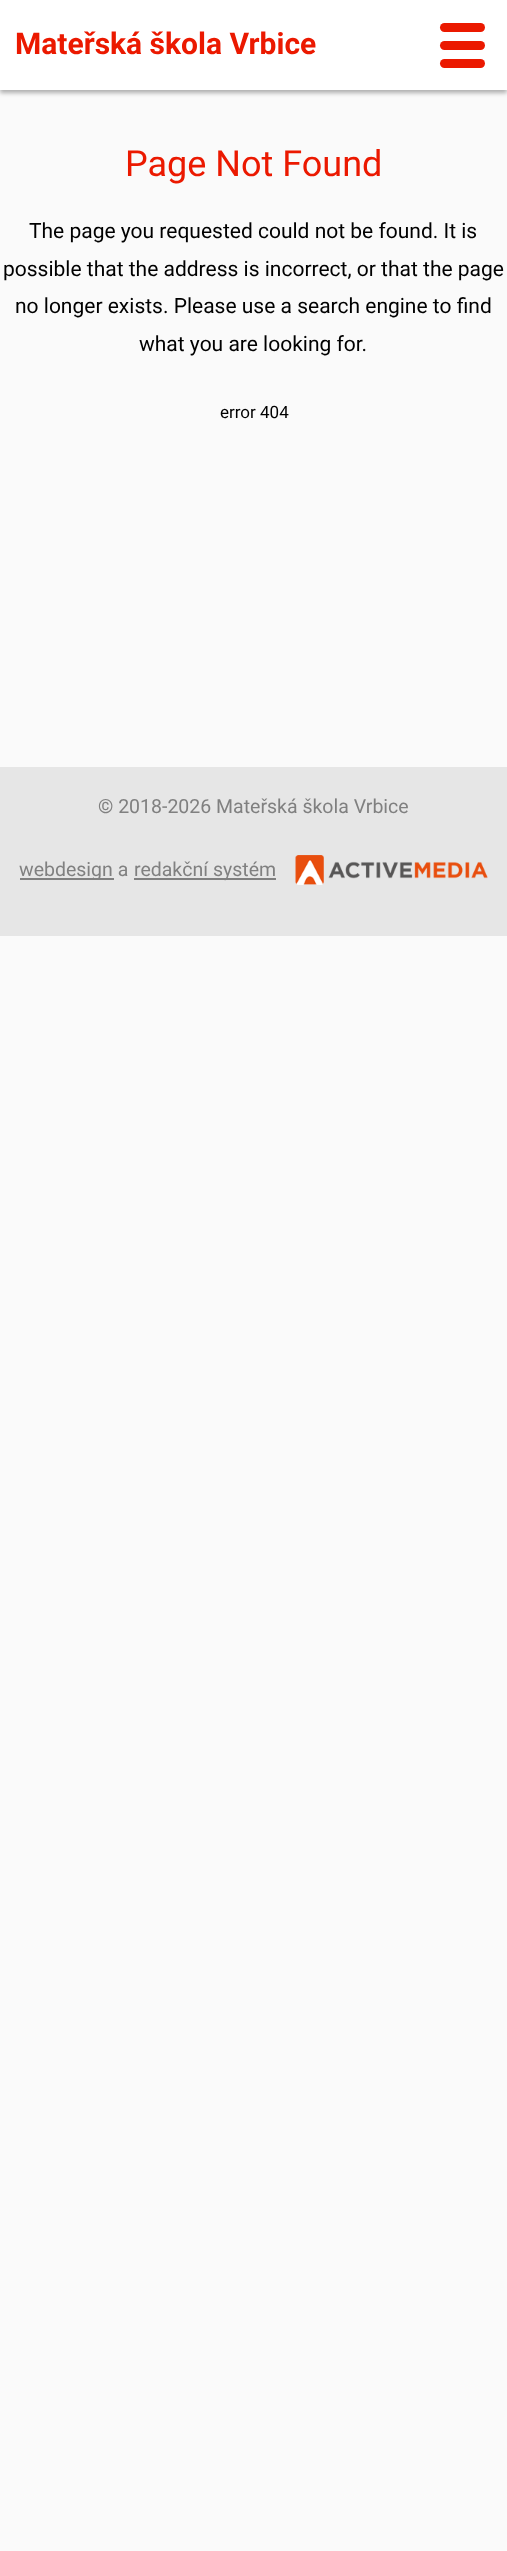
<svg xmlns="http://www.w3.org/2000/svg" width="507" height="2551">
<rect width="100%" height="100%" fill="#fafafa"/>
<rect y="3" width="507" height="90" fill="#0000004d" filter="blur(2px)"/>
<rect width="507" height="90" fill="#fff"/>
<text x="15" y="54" style="font-family:Roboto;font-size:30px;font-weight:bold;fill:#eb1900">Mateřská škola Vrbice</text>
<rect x="440" y="23" width="45" height="9" rx="4.5" fill="#eb1900"/>
<rect x="440" y="41" width="45" height="9" rx="4.5" fill="#eb1900"/>
<rect x="440" y="59" width="45" height="9" rx="4.5" fill="#eb1900"/>
<text x="125" y="176" style="font-family:Roboto;font-size:36px;fill:#eb1900">Page Not Found</text>
<text x="29" y="238" style="font-family:Roboto;font-size:21px;fill:#000">The page you requested could not be found. It is</text>
<text x="3" y="276" style="font-family:Roboto;font-size:21px;fill:#000">possible that the address is incorrect, or that the page</text>
<text x="15" y="313" style="font-family:Roboto;font-size:21px;fill:#000">no longer exists. Please use a search engine to find</text>
<text x="139" y="351" style="font-family:Roboto;font-size:21px;fill:#000">what you are looking for.</text>
<text x="220" y="418" style="font-family:Roboto;font-size:17px;fill:#000">error 404</text>
<rect y="767" width="507" height="169" fill="#e6e6e6"/>
<text x="98" y="813" style="font-family:Roboto;font-size:19.5px;fill:#808080">© 2018-2026 Mateřská škola Vrbice</text>
<rect x="20" y="878" width="94" height="2" fill="#808080"/>
<text x="19" y="876" style="font-family:Roboto;font-size:19.5px;fill:#808080">webdesign a</text>
<rect x="134" y="878" width="142" height="2" fill="#808080"/>
<text x="134" y="876" style="font-family:Roboto;font-size:19.5px;fill:#808080">redakční systém</text>
<image x="295" y="855" width="193" height="30" href="media/1.png"/>
</svg>
